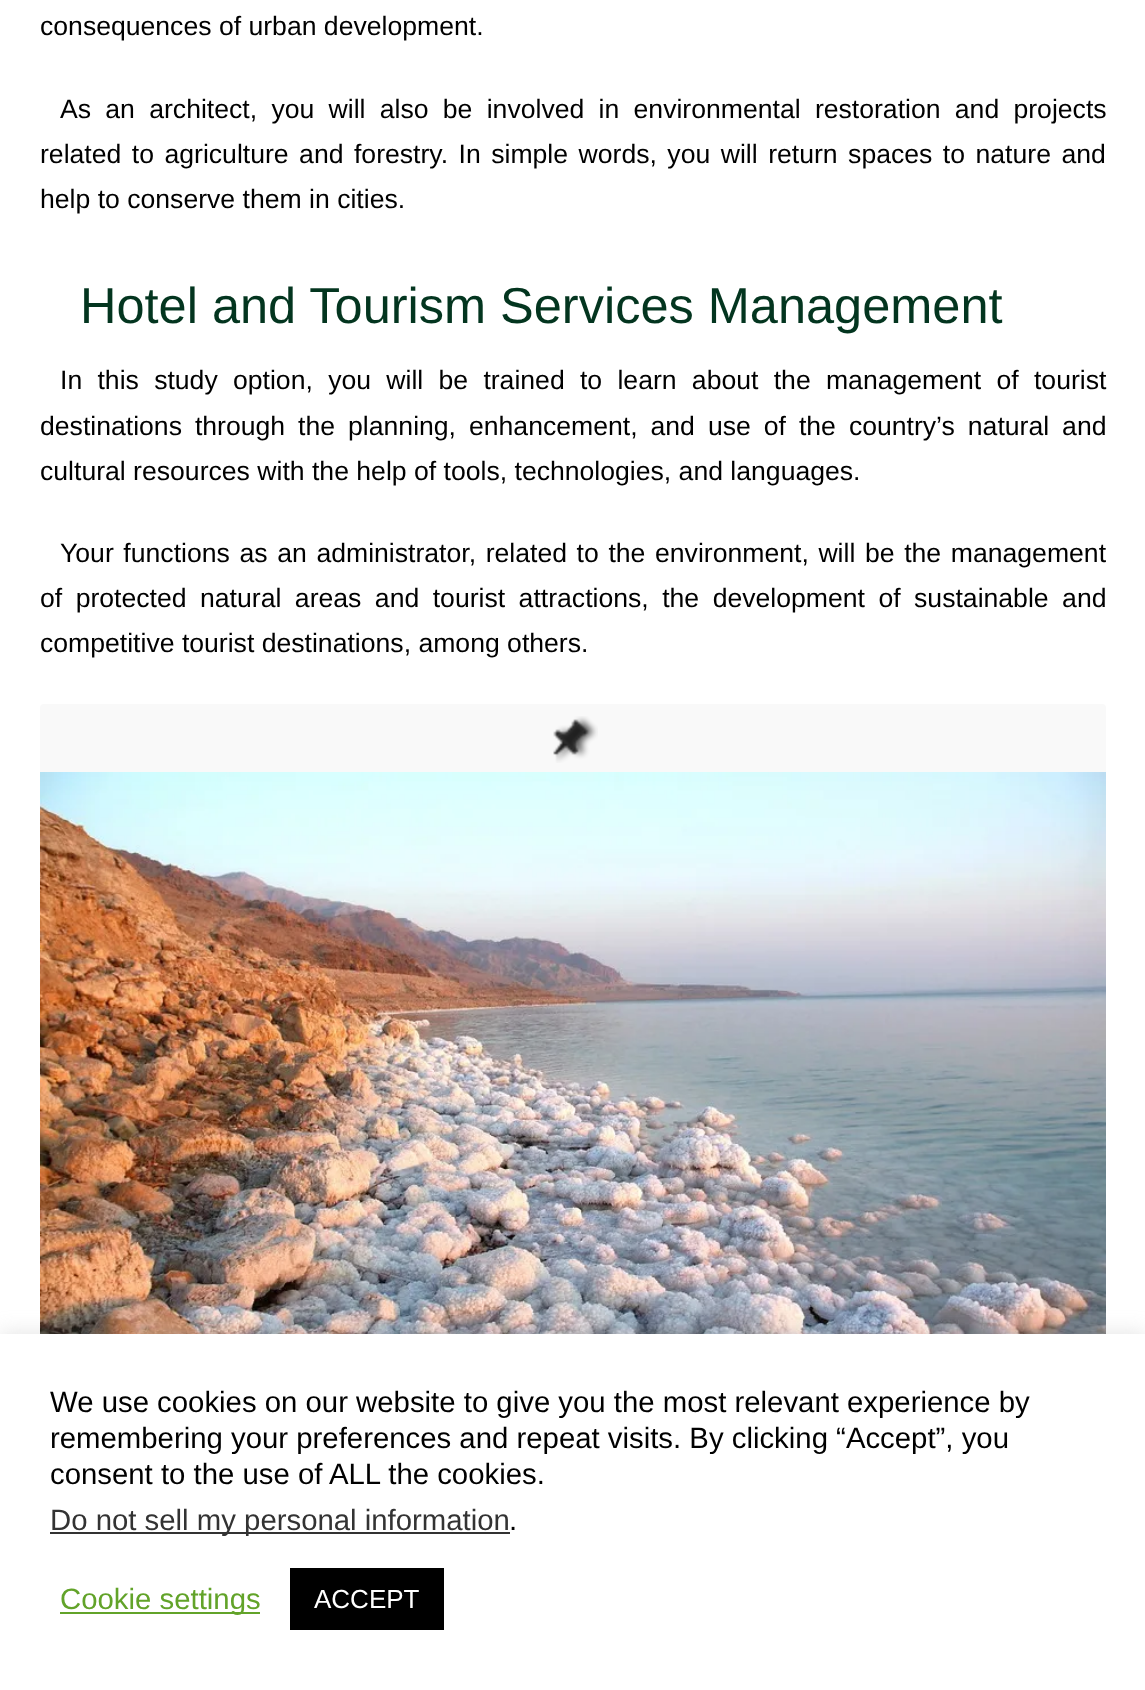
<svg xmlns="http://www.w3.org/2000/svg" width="1145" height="1690">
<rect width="100%" height="100%" fill="#fff"/>
<text x="40" y="35" style="font-family:Liberation Sans;font-size:26.6px;fill:#000">consequences of urban development.</text>
<text x="60" y="118" word-spacing="6.9" style="font-family:Liberation Sans;font-size:26.6px;fill:#000">As an architect, you will also be involved in environmental restoration and projects</text>
<text x="40" y="163" word-spacing="3.1" style="font-family:Liberation Sans;font-size:26.6px;fill:#000">related to agriculture and forestry. In simple words, you will return spaces to nature and</text>
<text x="40" y="208" style="font-family:Liberation Sans;font-size:26.6px;fill:#000">help to conserve them in cities.</text>
<text x="80" y="323" style="font-family:Liberation Sans;font-size:50.5px;fill:#03351f">Hotel and Tourism Services Management</text>
<text x="60" y="389" word-spacing="7.9" style="font-family:Liberation Sans;font-size:26.6px;fill:#000">In this study option, you will be trained to learn about the management of tourist</text>
<text x="40" y="435" word-spacing="5.6" style="font-family:Liberation Sans;font-size:26.6px;fill:#000">destinations through the planning, enhancement, and use of the country’s natural and</text>
<text x="40" y="480" style="font-family:Liberation Sans;font-size:26.6px;fill:#000">cultural resources with the help of tools, technologies, and languages.</text>
<text x="60" y="562" word-spacing="2.25" style="font-family:Liberation Sans;font-size:26.6px;fill:#000">Your functions as an administrator, related to the environment, will be the management</text>
<text x="40" y="607" word-spacing="6.1" style="font-family:Liberation Sans;font-size:26.6px;fill:#000">of protected natural areas and tourist attractions, the development of sustainable and</text>
<text x="40" y="652" style="font-family:Liberation Sans;font-size:26.6px;fill:#000">competitive tourist destinations, among others.</text>
<rect x="40" y="704" width="1066" height="762" rx="4" fill="#f9f9f9"/>
<image x="553" y="716" width="45" height="47" href="media/1.png"/>
<image x="40" y="772" width="1066" height="562" href="media/2.png"/>
<rect y="1332" width="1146" height="356" fill="#acabab4d" filter="blur(10px)"/>
<rect y="1334" width="1145" height="356" fill="#fff"/>
<text x="50" y="1412" style="font-family:Liberation Sans;font-size:29.35px;fill:#000">We use cookies on our website to give you the most relevant experience by</text>
<text x="50" y="1448" style="font-family:Liberation Sans;font-size:29.35px;fill:#000">remembering your preferences and repeat visits. By clicking “Accept”, you</text>
<text x="50" y="1484" style="font-family:Liberation Sans;font-size:29.35px;fill:#000">consent to the use of ALL the cookies.</text>
<rect x="50" y="1532" width="460" height="2" fill="#333"/>
<text x="50" y="1530" style="font-family:Liberation Sans;font-size:29.35px;fill:#333">Do not sell my personal information</text>
<text x="509" y="1530" style="font-family:Liberation Sans;font-size:29.35px;fill:#000">.</text>
<rect x="60" y="1612" width="200" height="2" fill="#62a329"/>
<text x="60" y="1609" style="font-family:Liberation Sans;font-size:29.35px;fill:#62a329">Cookie settings</text>
<rect x="290" y="1568" width="154" height="62" fill="#000"/>
<text x="314" y="1608" style="font-family:Liberation Sans;font-size:26px;fill:#fff">ACCEPT</text>
</svg>
